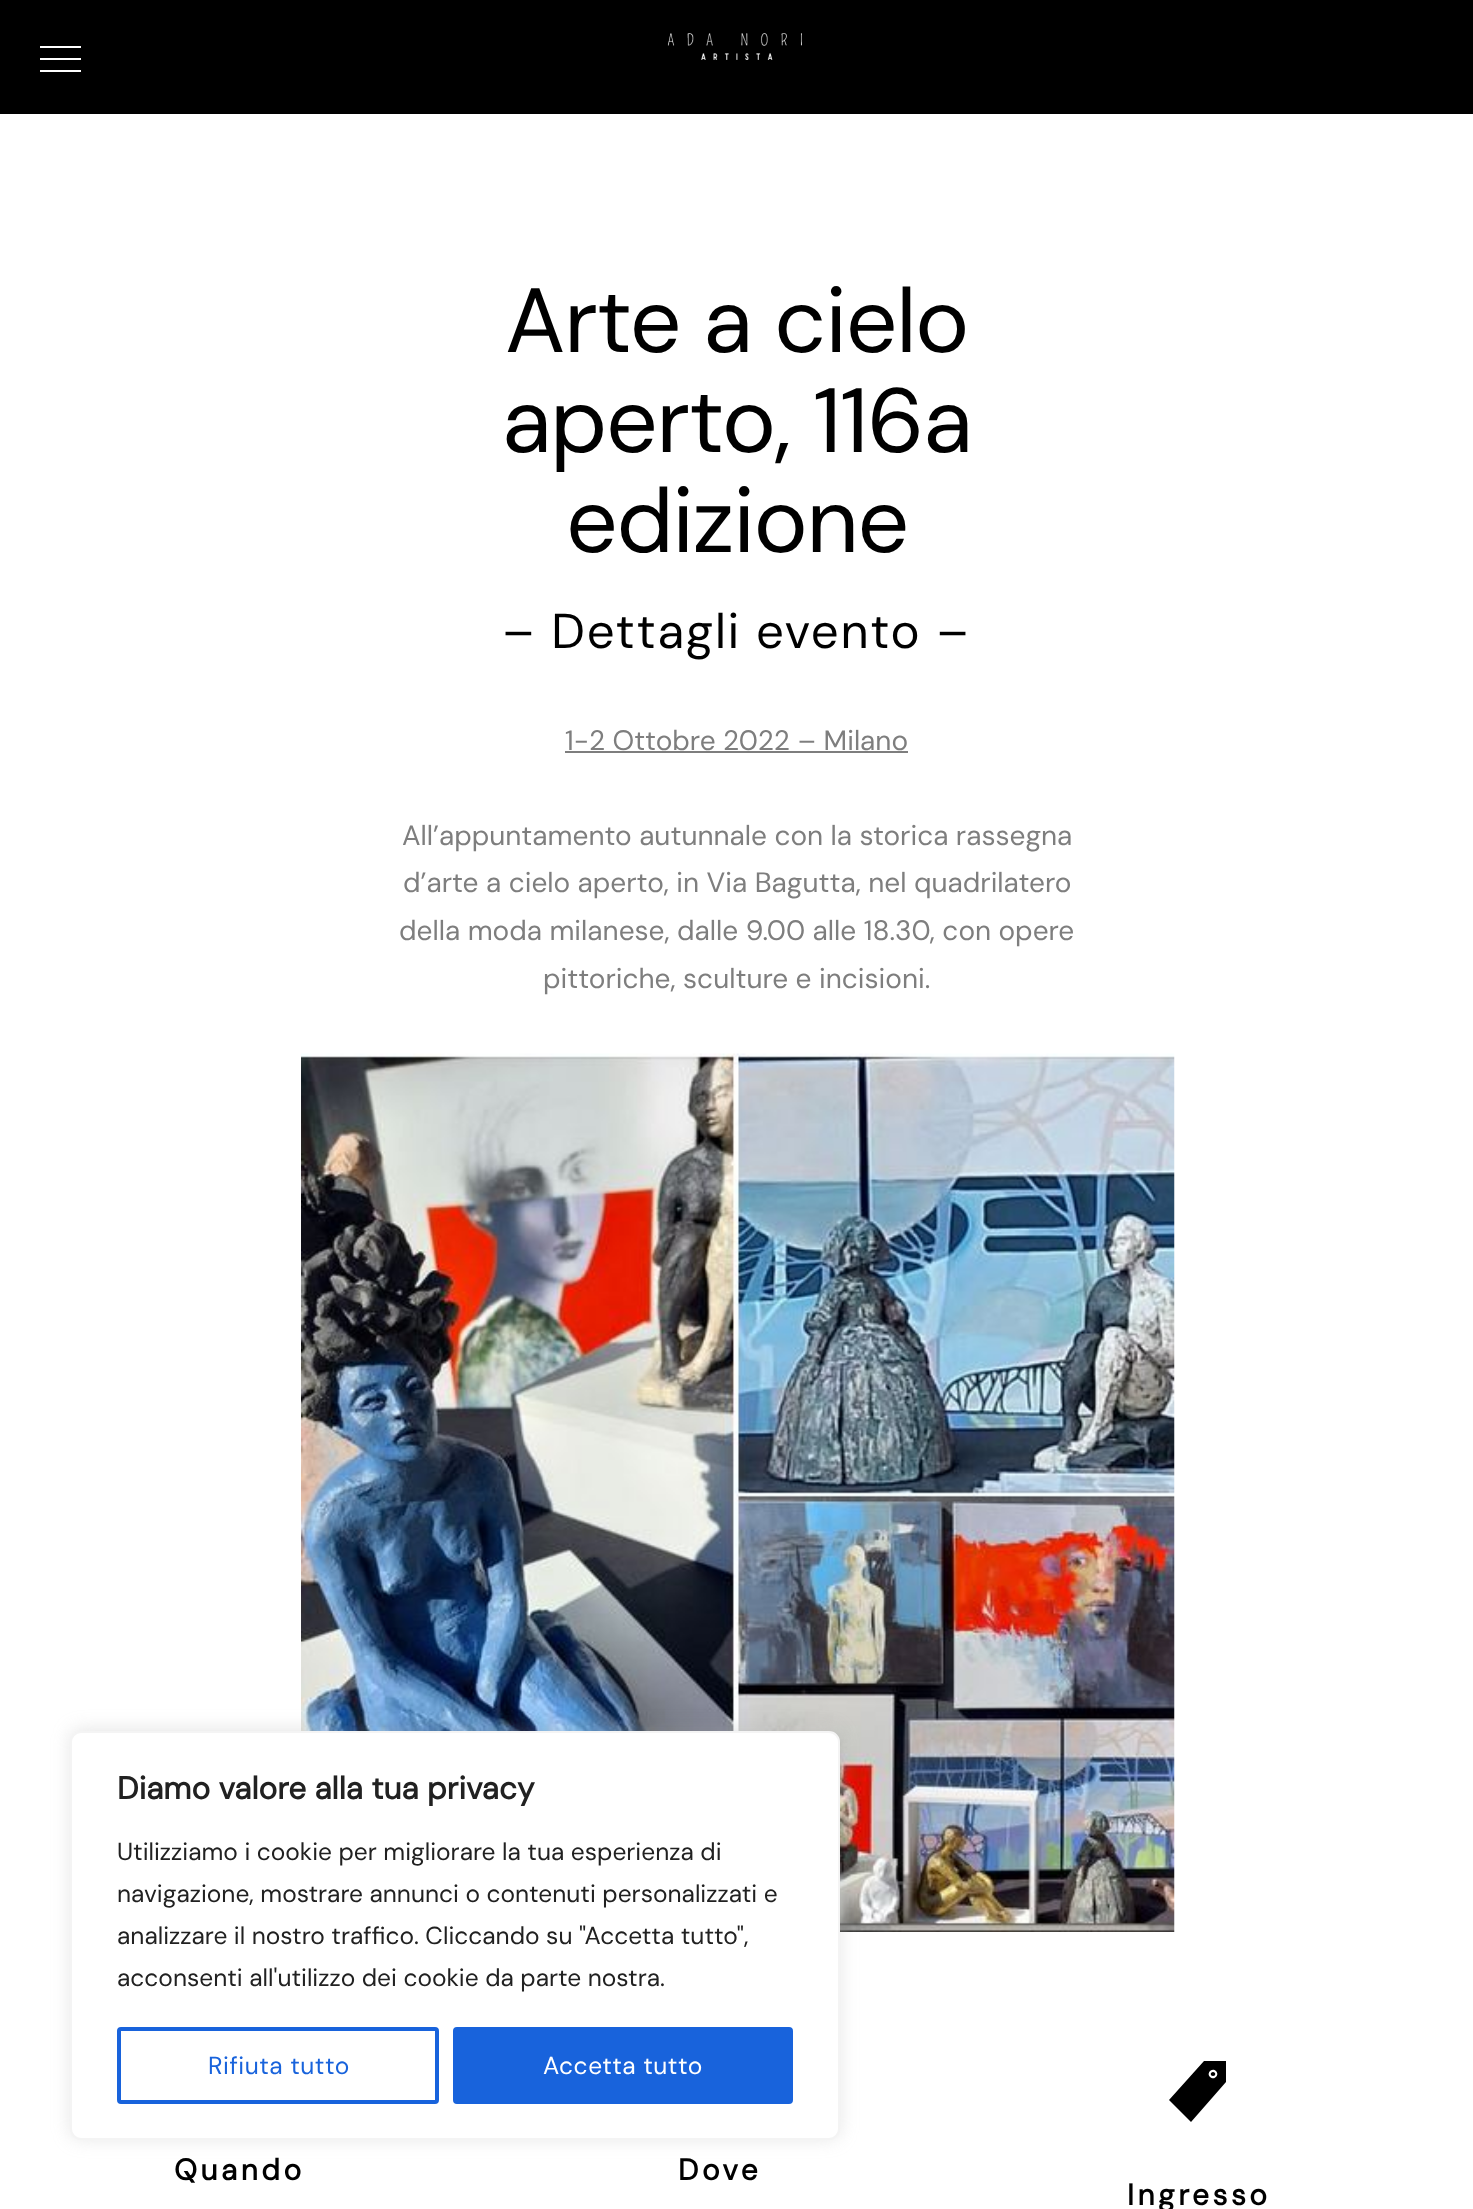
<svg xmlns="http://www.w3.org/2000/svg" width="1473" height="2209">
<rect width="100%" height="100%" fill="#fff"/>
<rect width="1473" height="114" fill="#000"/>
<image x="667" y="33" width="135" height="27" href="media/1.png"/>
<rect x="40" y="58" width="41" height="2" fill="#fff"/>
<rect x="40" y="46" width="41" height="2" fill="#fff"/>
<rect x="40" y="70" width="41" height="2" fill="#fff"/>
<text x="505" y="352" style="font-family:DM Sans;font-size:91px;letter-spacing:-1.25px;fill:#000">Arte a cielo</text>
<text x="502" y="452" style="font-family:DM Sans;font-size:91px;letter-spacing:-1.25px;fill:#000">aperto, 116a</text>
<text x="566" y="552" style="font-family:DM Sans;font-size:91px;letter-spacing:-1.25px;fill:#000">edizione</text>
<text x="502" y="648" style="font-family:DM Sans;font-size:49px;letter-spacing:1.75px;fill:#000">– Dettagli evento –</text>
<text x="565" y="750" style="font-family:DM Sans;font-size:28px;fill:#7e7e7e">1-2 Ottobre 2022 – Milano</text>
<rect x="565" y="751" width="343" height="2" fill="#7e7e7e"/>
<text x="402" y="845" style="font-family:DM Sans;font-size:28px;fill:#7e7e7e">All’appuntamento autunnale con la storica rassegna</text>
<text x="403" y="892" style="font-family:DM Sans;font-size:28px;fill:#7e7e7e">d’arte a cielo aperto, in Via Bagutta, nel quadrilatero</text>
<text x="399" y="940" style="font-family:DM Sans;font-size:28px;fill:#7e7e7e">della moda milanese, dalle 9.00 alle 18.30, con opere</text>
<text x="543" y="988" style="font-family:DM Sans;font-size:28px;fill:#7e7e7e">pittoriche, sculture e incisioni.</text>
<image x="301" y="1053" width="874" height="879" href="media/2.png"/>
<text x="174" y="2180" style="font-family:DM Sans;font-size:29.75px;font-weight:bold;letter-spacing:3.5px;fill:#000">Quando</text>
<text x="678" y="2180" style="font-family:DM Sans;font-size:29.75px;font-weight:bold;letter-spacing:3.5px;fill:#000">Dove</text>
<path d="M1213 2076c-3 0-3-4 0-4c3 0 3 4 0 4zm-9-15h22v21l-35 40l-22-22zm6 16c4 4 10-2 6-6c-4-4-10 2-6 6z" fill="#000"/>
<text x="1127" y="2205" style="font-family:DM Sans;font-size:29.75px;font-weight:bold;letter-spacing:3.5px;fill:#000">Ingresso</text>
<rect x="70" y="1729" width="770" height="410" rx="11" fill="#acabab4d" filter="blur(9px)"/>
<rect x="71" y="1732" width="768" height="407" rx="10" fill="#fff" stroke="#f4f4f4" stroke-width="2"/>
<text x="117" y="1799" style="font-family:DM Sans;font-size:31.5px;font-weight:bold;fill:#212121">Diamo valore alla tua privacy</text>
<text x="117" y="1860" style="font-family:DM Sans;font-size:24.5px;fill:#212121">Utilizziamo i cookie per migliorare la tua esperienza di</text>
<text x="117" y="1902" style="font-family:DM Sans;font-size:24.5px;fill:#212121">navigazione, mostrare annunci o contenuti personalizzati e</text>
<text x="117" y="1944" style="font-family:DM Sans;font-size:24.5px;fill:#212121">analizzare il nostro traffico. Cliccando su "Accetta tutto",</text>
<text x="117" y="1986" style="font-family:DM Sans;font-size:24.5px;fill:#212121">acconsenti all'utilizzo dei cookie da parte nostra.</text>
<rect x="119" y="2029" width="318" height="73" rx="2" fill="none" stroke="#1863dc" stroke-width="4"/>
<text x="208" y="2074" style="font-family:DM Sans;font-size:24.5px;letter-spacing:0.5px;fill:#1863dc">Rifiuta tutto</text>
<rect x="455" y="2029" width="336" height="73" rx="2" fill="#1863dc" stroke="#1863dc" stroke-width="4"/>
<text x="543" y="2074" style="font-family:DM Sans;font-size:24.5px;letter-spacing:0.5px;fill:#fff">Accetta tutto</text>
</svg>
